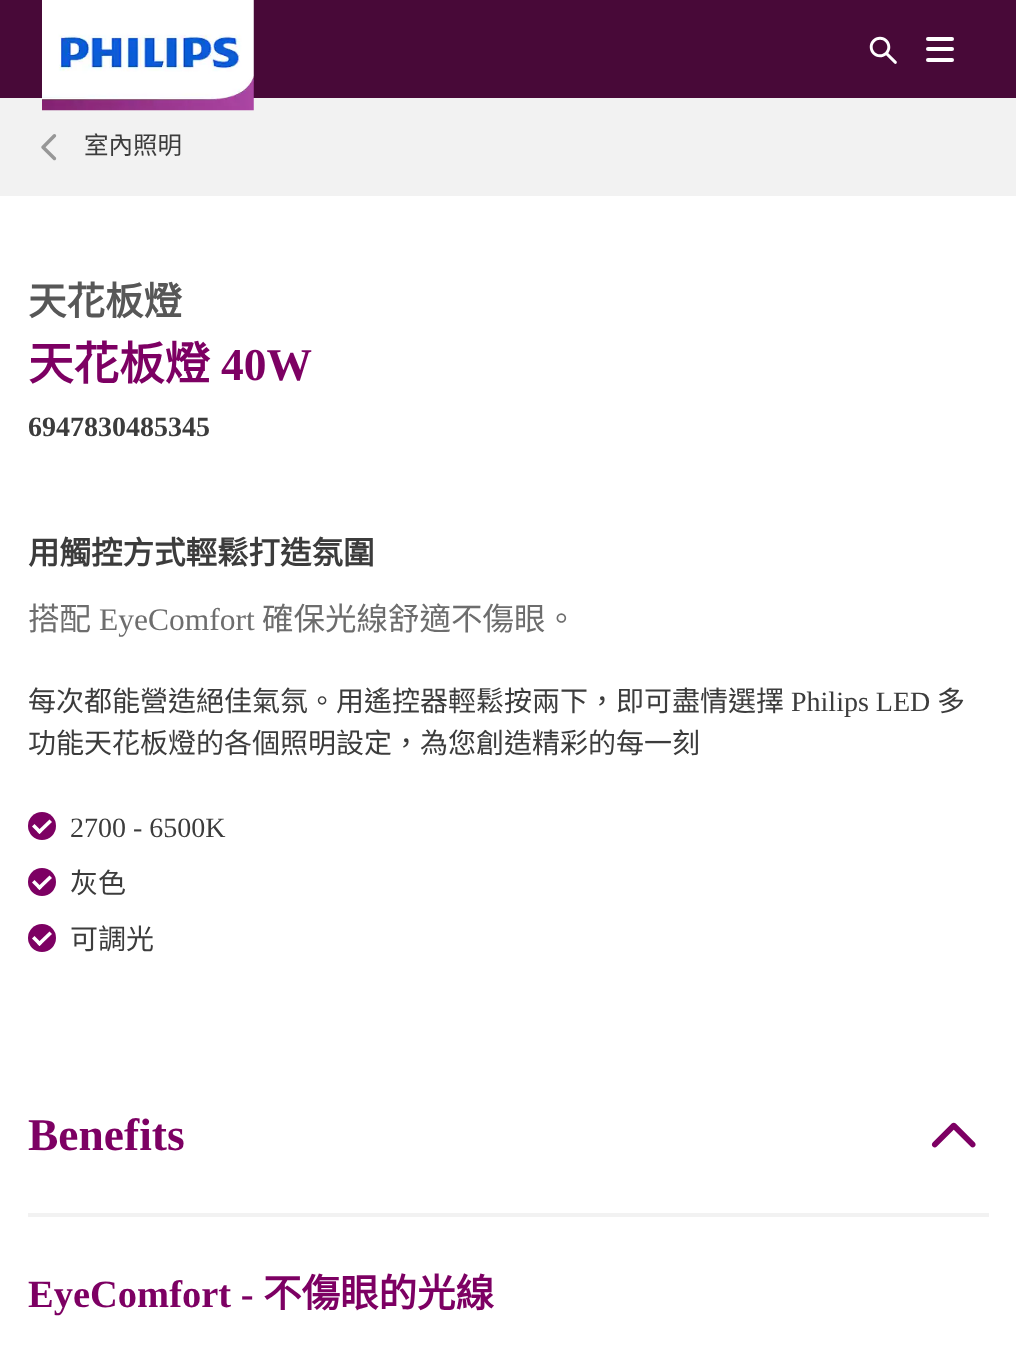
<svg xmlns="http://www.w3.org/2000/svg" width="1016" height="1364">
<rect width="100%" height="100%" fill="#fff"/>
<rect width="1016" height="98" fill="#480938"/>
<rect y="98" width="1016" height="98" fill="#f2f2f2"/>
<image x="42" y="0" width="212" height="111" href="media/1.png"/>
<image x="869" y="36" width="28" height="28" href="media/2.png"/>
<rect x="926" y="37" width="28" height="4" rx="2" fill="#fff"/>
<rect x="926" y="47" width="28" height="4" rx="2" fill="#fff"/>
<rect x="926" y="58" width="28" height="4" rx="2" fill="#fff"/>
<image x="41" y="134" width="16" height="27" href="media/3.png"/>
<text x="84" y="154" style="font-family:Noto Sans CJK HK;font-size:24.5px;fill:#3c3c3c">室內照明</text>
<text x="28" y="315" style="font-family:Noto Sans CJK HK;font-size:38.5px;font-weight:bold;fill:#575757">天花板燈</text>
<text x="28" y="380" style="font-family:Noto Sans CJK HK;font-size:45.5px;font-weight:bold;fill:#7d0063">天花板燈</text>
<text x="221" y="380" style="font-family:Liberation Serif;font-size:45.5px;font-weight:bold;fill:#7d0063">40W</text>
<text x="28" y="436" style="font-family:Liberation Serif;font-size:28px;font-weight:bold;fill:#3c3c3c">6947830485345</text>
<text x="28" y="564" style="font-family:Noto Sans CJK HK;font-size:31.5px;font-weight:bold;fill:#3c3c3c">用觸控方式輕鬆打造氛圍</text>
<text x="28" y="630" style="font-family:Noto Sans CJK HK;font-size:31.5px;fill:#6d6d6d">搭配</text>
<text x="99" y="630" style="font-family:Liberation Serif;font-size:31.5px;fill:#6d6d6d">EyeComfort</text>
<text x="262" y="630" style="font-family:Noto Sans CJK HK;font-size:31.5px;fill:#6d6d6d">確保光線舒適不傷眼。</text>
<text x="28" y="711" style="font-family:Noto Sans CJK HK;font-size:28px;fill:#3c3c3c">每次都能營造絕佳氣氛。用遙控器輕鬆按兩下，即可盡情選擇</text>
<text x="791" y="711" style="font-family:Liberation Serif;font-size:28px;fill:#3c3c3c">Philips LED</text>
<text x="937" y="711" style="font-family:Noto Sans CJK HK;font-size:28px;fill:#3c3c3c">多</text>
<text x="28" y="753" style="font-family:Noto Sans CJK HK;font-size:28px;fill:#3c3c3c">功能天花板燈的各個照明設定，為您創造精彩的每一刻</text>
<circle cx="42" cy="826" r="14" fill="#7d0063"/>
<text x="70" y="837" style="font-family:Liberation Serif;font-size:28px;fill:#3c3c3c">2700 - 6500K</text>
<path d="M49.5 819.5l2.5 2.5l-12.5 12l-2.5-2.5z" fill="#fff"/>
<path d="M34.5 824l7.5 7.5l-2.5 2.5l-7.5-7.5z" fill="#fff"/>
<circle cx="42" cy="882" r="14" fill="#7d0063"/>
<text x="70" y="893" style="font-family:Noto Sans CJK HK;font-size:28px;fill:#3c3c3c">灰色</text>
<path d="M49.5 875.5l2.5 2.5l-12.5 12l-2.5-2.5z" fill="#fff"/>
<path d="M34.5 880l7.5 7.5l-2.5 2.5l-7.5-7.5z" fill="#fff"/>
<circle cx="42" cy="938" r="14" fill="#7d0063"/>
<text x="70" y="949" style="font-family:Noto Sans CJK HK;font-size:28px;fill:#3c3c3c">可調光</text>
<path d="M49.5 931.5l2.5 2.5l-12.5 12l-2.5-2.5z" fill="#fff"/>
<path d="M34.5 936l7.5 7.5l-2.5 2.5l-7.5-7.5z" fill="#fff"/>
<rect x="28" y="1213" width="961" height="4" fill="#f2f2f2"/>
<text x="28" y="1150" style="font-family:Liberation Serif;font-size:45.5px;font-weight:bold;fill:#7d0063">Benefits</text>
<image x="931" y="1122" width="45" height="26" href="media/4.png"/>
<text x="28" y="1307" style="font-family:Liberation Serif;font-size:38.5px;font-weight:bold;fill:#7d0063">EyeComfort -</text>
<text x="263" y="1307" style="font-family:Noto Sans CJK HK;font-size:38.5px;font-weight:bold;fill:#7d0063">不傷眼的光線</text>
</svg>
